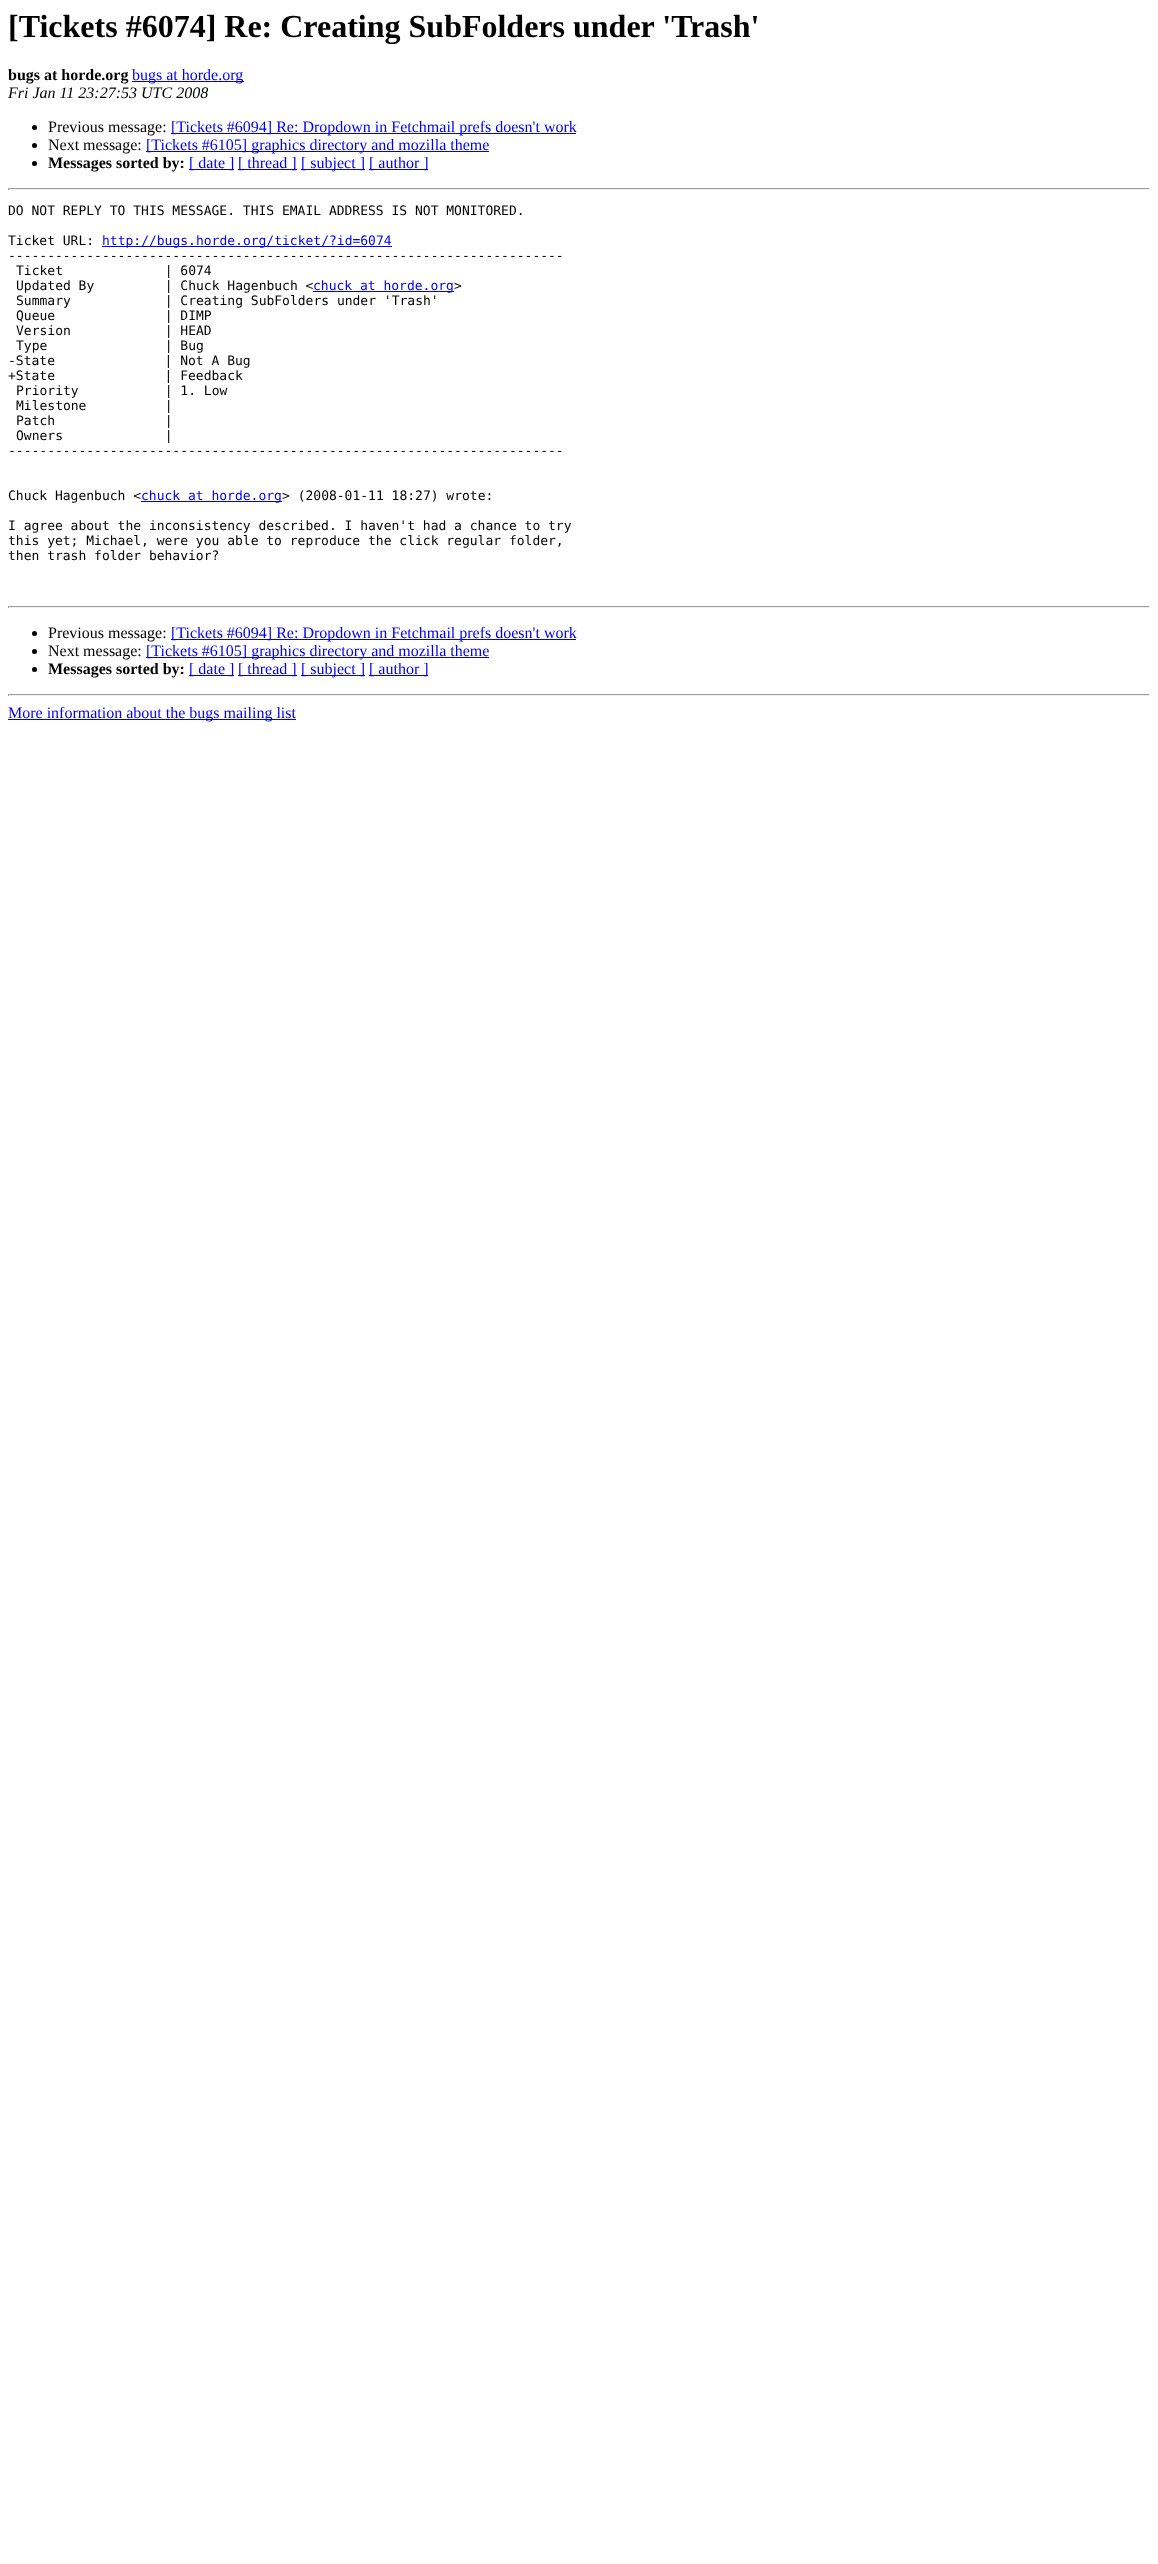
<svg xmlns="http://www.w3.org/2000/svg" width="1158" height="2564">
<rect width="100%" height="100%" fill="#fff"/>
<text x="8" y="37" style="font-family:Liberation Serif;font-size:32px;font-weight:bold;fill:#000">[Tickets #6074] Re: Creating SubFolders under 'Trash'</text>
<text x="8" y="80" style="font-family:Liberation Serif;font-size:16px;font-weight:bold;fill:#000">bugs at horde.org</text>
<rect x="132" y="81" width="112" height="1" fill="#00e"/>
<text x="132" y="80" style="font-family:Liberation Serif;font-size:16px;fill:#00e">bugs at horde.org</text>
<text x="8" y="98" style="font-family:Liberation Serif;font-size:16px;font-style:italic;fill:#000">Fri Jan 11 23:27:53 UTC 2008</text>
<circle cx="34.5" cy="127.5" r="2.5" fill="#000"/>
<text x="48" y="132" style="font-family:Liberation Serif;font-size:16px;fill:#000">Previous message:</text>
<rect x="171" y="133" width="405" height="1" fill="#00e"/>
<text x="171" y="132" style="font-family:Liberation Serif;font-size:16px;fill:#00e">[Tickets #6094] Re: Dropdown in Fetchmail prefs doesn't work</text>
<circle cx="34.5" cy="145.5" r="2.5" fill="#000"/>
<text x="48" y="150" style="font-family:Liberation Serif;font-size:16px;fill:#000">Next message:</text>
<rect x="146" y="151" width="343" height="1" fill="#00e"/>
<text x="146" y="150" style="font-family:Liberation Serif;font-size:16px;fill:#00e">[Tickets #6105] graphics directory and mozilla theme</text>
<circle cx="34.5" cy="163.5" r="2.5" fill="#000"/>
<text x="48" y="168" style="font-family:Liberation Serif;font-size:16px;font-weight:bold;fill:#000">Messages sorted by:</text>
<rect x="189" y="169" width="45" height="1" fill="#00e"/>
<text x="189" y="168" style="font-family:Liberation Serif;font-size:16px;fill:#00e">[ date ]</text>
<rect x="238" y="169" width="59" height="1" fill="#00e"/>
<text x="238" y="168" style="font-family:Liberation Serif;font-size:16px;fill:#00e">[ thread ]</text>
<rect x="301" y="169" width="64" height="1" fill="#00e"/>
<text x="301" y="168" style="font-family:Liberation Serif;font-size:16px;fill:#00e">[ subject ]</text>
<rect x="369" y="169" width="59" height="1" fill="#00e"/>
<text x="369" y="168" style="font-family:Liberation Serif;font-size:16px;fill:#00e">[ author ]</text>
<rect x="8" y="188" width="1142" height="1" fill="#9f9f9f"/>
<rect x="1149" y="188" width="1" height="2" fill="#eee"/>
<rect x="8" y="189" width="1142" height="1" fill="#eee"/>
<rect x="8" y="188" width="1" height="2" fill="#9f9f9f"/>
<text x="8" y="215" style="font-family:DejaVu Sans Mono;font-size:13px;fill:#000">DO NOT REPLY TO THIS MESSAGE. THIS EMAIL ADDRESS IS NOT MONITORED.</text>
<text x="8" y="245" style="font-family:DejaVu Sans Mono;font-size:13px;fill:#000">Ticket URL:</text>
<rect x="102" y="246" width="290" height="1" fill="#00e"/>
<text x="102" y="245" style="font-family:DejaVu Sans Mono;font-size:13px;fill:#00e">http://bugs.horde.org/ticket/?id=6074</text>
<text x="8" y="260" style="font-family:DejaVu Sans Mono;font-size:13px;fill:#000">-----------------------------------------------------------------------</text>
<text x="16" y="275" style="font-family:DejaVu Sans Mono;font-size:13px;fill:#000" xml:space="preserve">Ticket             | 6074</text>
<text x="16" y="290" style="font-family:DejaVu Sans Mono;font-size:13px;fill:#000" xml:space="preserve">Updated By         | Chuck Hagenbuch &lt;</text>
<rect x="313" y="291" width="141" height="1" fill="#00e"/>
<text x="313" y="290" style="font-family:DejaVu Sans Mono;font-size:13px;fill:#00e">chuck at horde.org</text>
<text x="454" y="290" style="font-family:DejaVu Sans Mono;font-size:13px;fill:#000">&gt;</text>
<text x="16" y="305" style="font-family:DejaVu Sans Mono;font-size:13px;fill:#000" xml:space="preserve">Summary            | Creating SubFolders under 'Trash'</text>
<text x="16" y="320" style="font-family:DejaVu Sans Mono;font-size:13px;fill:#000" xml:space="preserve">Queue              | DIMP</text>
<text x="16" y="335" style="font-family:DejaVu Sans Mono;font-size:13px;fill:#000" xml:space="preserve">Version            | HEAD</text>
<text x="16" y="350" style="font-family:DejaVu Sans Mono;font-size:13px;fill:#000" xml:space="preserve">Type               | Bug</text>
<text x="8" y="365" style="font-family:DejaVu Sans Mono;font-size:13px;fill:#000" xml:space="preserve">-State              | Not A Bug</text>
<text x="8" y="380" style="font-family:DejaVu Sans Mono;font-size:13px;fill:#000" xml:space="preserve">+State              | Feedback</text>
<text x="16" y="395" style="font-family:DejaVu Sans Mono;font-size:13px;fill:#000" xml:space="preserve">Priority           | 1. Low</text>
<text x="16" y="410" style="font-family:DejaVu Sans Mono;font-size:13px;fill:#000" xml:space="preserve">Milestone          |</text>
<text x="16" y="425" style="font-family:DejaVu Sans Mono;font-size:13px;fill:#000" xml:space="preserve">Patch              |</text>
<text x="16" y="440" style="font-family:DejaVu Sans Mono;font-size:13px;fill:#000" xml:space="preserve">Owners             |</text>
<text x="8" y="455" style="font-family:DejaVu Sans Mono;font-size:13px;fill:#000">-----------------------------------------------------------------------</text>
<text x="8" y="500" style="font-family:DejaVu Sans Mono;font-size:13px;fill:#000">Chuck Hagenbuch &lt;</text>
<rect x="141" y="501" width="141" height="1" fill="#00e"/>
<text x="141" y="500" style="font-family:DejaVu Sans Mono;font-size:13px;fill:#00e">chuck at horde.org</text>
<text x="282" y="500" style="font-family:DejaVu Sans Mono;font-size:13px;fill:#000">&gt; (2008-01-11 18:27) wrote:</text>
<text x="8" y="530" style="font-family:DejaVu Sans Mono;font-size:13px;fill:#000">I agree about the inconsistency described. I haven't had a chance to try</text>
<text x="8" y="545" style="font-family:DejaVu Sans Mono;font-size:13px;fill:#000">this yet; Michael, were you able to reproduce the click regular folder,</text>
<text x="8" y="560" style="font-family:DejaVu Sans Mono;font-size:13px;fill:#000">then trash folder behavior?</text>
<rect x="8" y="606" width="1142" height="1" fill="#9f9f9f"/>
<rect x="1149" y="606" width="1" height="2" fill="#eee"/>
<rect x="8" y="607" width="1142" height="1" fill="#eee"/>
<rect x="8" y="606" width="1" height="2" fill="#9f9f9f"/>
<circle cx="34.5" cy="633.5" r="2.5" fill="#000"/>
<text x="48" y="638" style="font-family:Liberation Serif;font-size:16px;fill:#000">Previous message:</text>
<rect x="171" y="639" width="405" height="1" fill="#00e"/>
<text x="171" y="638" style="font-family:Liberation Serif;font-size:16px;fill:#00e">[Tickets #6094] Re: Dropdown in Fetchmail prefs doesn't work</text>
<circle cx="34.5" cy="651.5" r="2.5" fill="#000"/>
<text x="48" y="656" style="font-family:Liberation Serif;font-size:16px;fill:#000">Next message:</text>
<rect x="146" y="657" width="343" height="1" fill="#00e"/>
<text x="146" y="656" style="font-family:Liberation Serif;font-size:16px;fill:#00e">[Tickets #6105] graphics directory and mozilla theme</text>
<circle cx="34.5" cy="669.5" r="2.5" fill="#000"/>
<text x="48" y="674" style="font-family:Liberation Serif;font-size:16px;font-weight:bold;fill:#000">Messages sorted by:</text>
<rect x="189" y="675" width="45" height="1" fill="#00e"/>
<text x="189" y="674" style="font-family:Liberation Serif;font-size:16px;fill:#00e">[ date ]</text>
<rect x="238" y="675" width="59" height="1" fill="#00e"/>
<text x="238" y="674" style="font-family:Liberation Serif;font-size:16px;fill:#00e">[ thread ]</text>
<rect x="301" y="675" width="64" height="1" fill="#00e"/>
<text x="301" y="674" style="font-family:Liberation Serif;font-size:16px;fill:#00e">[ subject ]</text>
<rect x="369" y="675" width="59" height="1" fill="#00e"/>
<text x="369" y="674" style="font-family:Liberation Serif;font-size:16px;fill:#00e">[ author ]</text>
<rect x="8" y="694" width="1142" height="1" fill="#9f9f9f"/>
<rect x="1149" y="694" width="1" height="2" fill="#eee"/>
<rect x="8" y="695" width="1142" height="1" fill="#eee"/>
<rect x="8" y="694" width="1" height="2" fill="#9f9f9f"/>
<rect x="8" y="719" width="288" height="1" fill="#00e"/>
<text x="8" y="718" style="font-family:Liberation Serif;font-size:16px;fill:#00e">More information about the bugs mailing list</text>
</svg>
